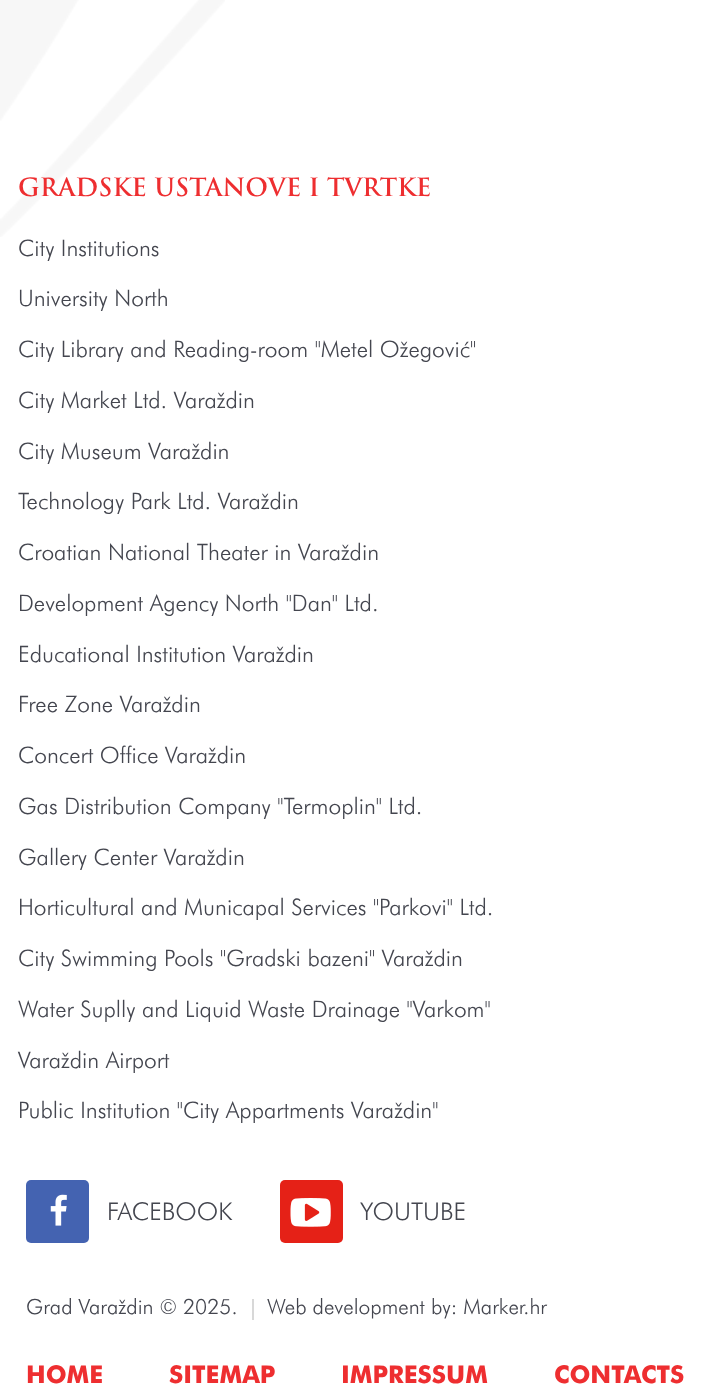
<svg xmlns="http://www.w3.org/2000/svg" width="709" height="1393">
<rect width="100%" height="100%" fill="#fff"/>
<image x="0" y="0" width="225" height="237" href="media/1.png"/>
<text x="18" y="196" style="font-family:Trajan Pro;font-size:24.5px;font-weight:bold;fill:#ee2e30">GRADSKE USTANOVE I TVRTKE</text>
<text x="18" y="256" style="font-family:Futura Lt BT;font-size:22.75px;font-weight:300;fill:#44464f">City Institutions</text>
<text x="18" y="306" style="font-family:Futura Lt BT;font-size:22.75px;font-weight:300;fill:#44464f">University North</text>
<text x="18" y="357" style="font-family:Futura Lt BT;font-size:22.75px;font-weight:300;fill:#44464f">City Library and Reading-room "Metel Ožegović"</text>
<text x="18" y="408" style="font-family:Futura Lt BT;font-size:22.75px;font-weight:300;fill:#44464f">City Market Ltd. Varaždin</text>
<text x="18" y="459" style="font-family:Futura Lt BT;font-size:22.75px;font-weight:300;fill:#44464f">City Museum Varaždin</text>
<text x="18" y="509" style="font-family:Futura Lt BT;font-size:22.75px;font-weight:300;fill:#44464f">Technology Park Ltd. Varaždin</text>
<text x="18" y="560" style="font-family:Futura Lt BT;font-size:22.75px;font-weight:300;fill:#44464f">Croatian National Theater in Varaždin</text>
<text x="18" y="611" style="font-family:Futura Lt BT;font-size:22.75px;font-weight:300;fill:#44464f">Development Agency North "Dan" Ltd.</text>
<text x="18" y="662" style="font-family:Futura Lt BT;font-size:22.75px;font-weight:300;fill:#44464f">Educational Institution Varaždin</text>
<text x="18" y="712" style="font-family:Futura Lt BT;font-size:22.75px;font-weight:300;fill:#44464f">Free Zone Varaždin</text>
<text x="18" y="763" style="font-family:Futura Lt BT;font-size:22.75px;font-weight:300;fill:#44464f">Concert Office Varaždin</text>
<text x="18" y="814" style="font-family:Futura Lt BT;font-size:22.75px;font-weight:300;fill:#44464f">Gas Distribution Company "Termoplin" Ltd.</text>
<text x="18" y="865" style="font-family:Futura Lt BT;font-size:22.75px;font-weight:300;fill:#44464f">Gallery Center Varaždin</text>
<text x="18" y="915" style="font-family:Futura Lt BT;font-size:22.75px;font-weight:300;fill:#44464f">Horticultural and Municapal Services "Parkovi" Ltd.</text>
<text x="18" y="966" style="font-family:Futura Lt BT;font-size:22.75px;font-weight:300;fill:#44464f">City Swimming Pools "Gradski bazeni" Varaždin</text>
<text x="18" y="1017" style="font-family:Futura Lt BT;font-size:22.75px;font-weight:300;fill:#44464f">Water Suplly and Liquid Waste Drainage "Varkom"</text>
<text x="18" y="1068" style="font-family:Futura Lt BT;font-size:22.75px;font-weight:300;fill:#44464f">Varaždin Airport</text>
<text x="18" y="1118" style="font-family:Futura Lt BT;font-size:22.75px;font-weight:300;fill:#44464f">Public Institution "City Appartments Varaždin"</text>
<rect x="26" y="1180" width="63" height="63" rx="5" fill="#4463b1"/>
<image x="50" y="1194" width="17" height="32" href="media/2.png"/>
<text x="107" y="1220" style="font-family:Futura Lt BT;font-size:24.5px;font-weight:300;fill:#44464f">FACEBOOK</text>
<rect x="280" y="1180" width="63" height="63" rx="5" fill="#e52117"/>
<image x="290" y="1198" width="41" height="29" href="media/3.png"/>
<text x="360" y="1220" style="font-family:Futura Lt BT;font-size:24.5px;font-weight:300;fill:#44464f">YOUTUBE</text>
<text x="26" y="1314" style="font-family:Futura Lt BT;font-size:21px;font-weight:300;fill:#44464f">Grad Varaždin © 2025.</text>
<rect x="252" y="1299" width="2" height="21" fill="#d8d8d8"/>
<text x="267" y="1314" style="font-family:Futura Lt BT;font-size:21px;font-weight:300;fill:#44464f">Web development by: Marker.hr</text>
<text x="26" y="1383" style="font-family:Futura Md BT;font-size:24.5px;font-weight:bold;fill:#ee2e30">HOME</text>
<text x="169" y="1383" style="font-family:Futura Md BT;font-size:24.5px;font-weight:bold;fill:#ee2e30">SITEMAP</text>
<text x="341" y="1383" style="font-family:Futura Md BT;font-size:24.5px;font-weight:bold;fill:#ee2e30">IMPRESSUM</text>
<text x="554" y="1383" style="font-family:Futura Md BT;font-size:24.5px;font-weight:bold;fill:#ee2e30">CONTACTS</text>
</svg>
